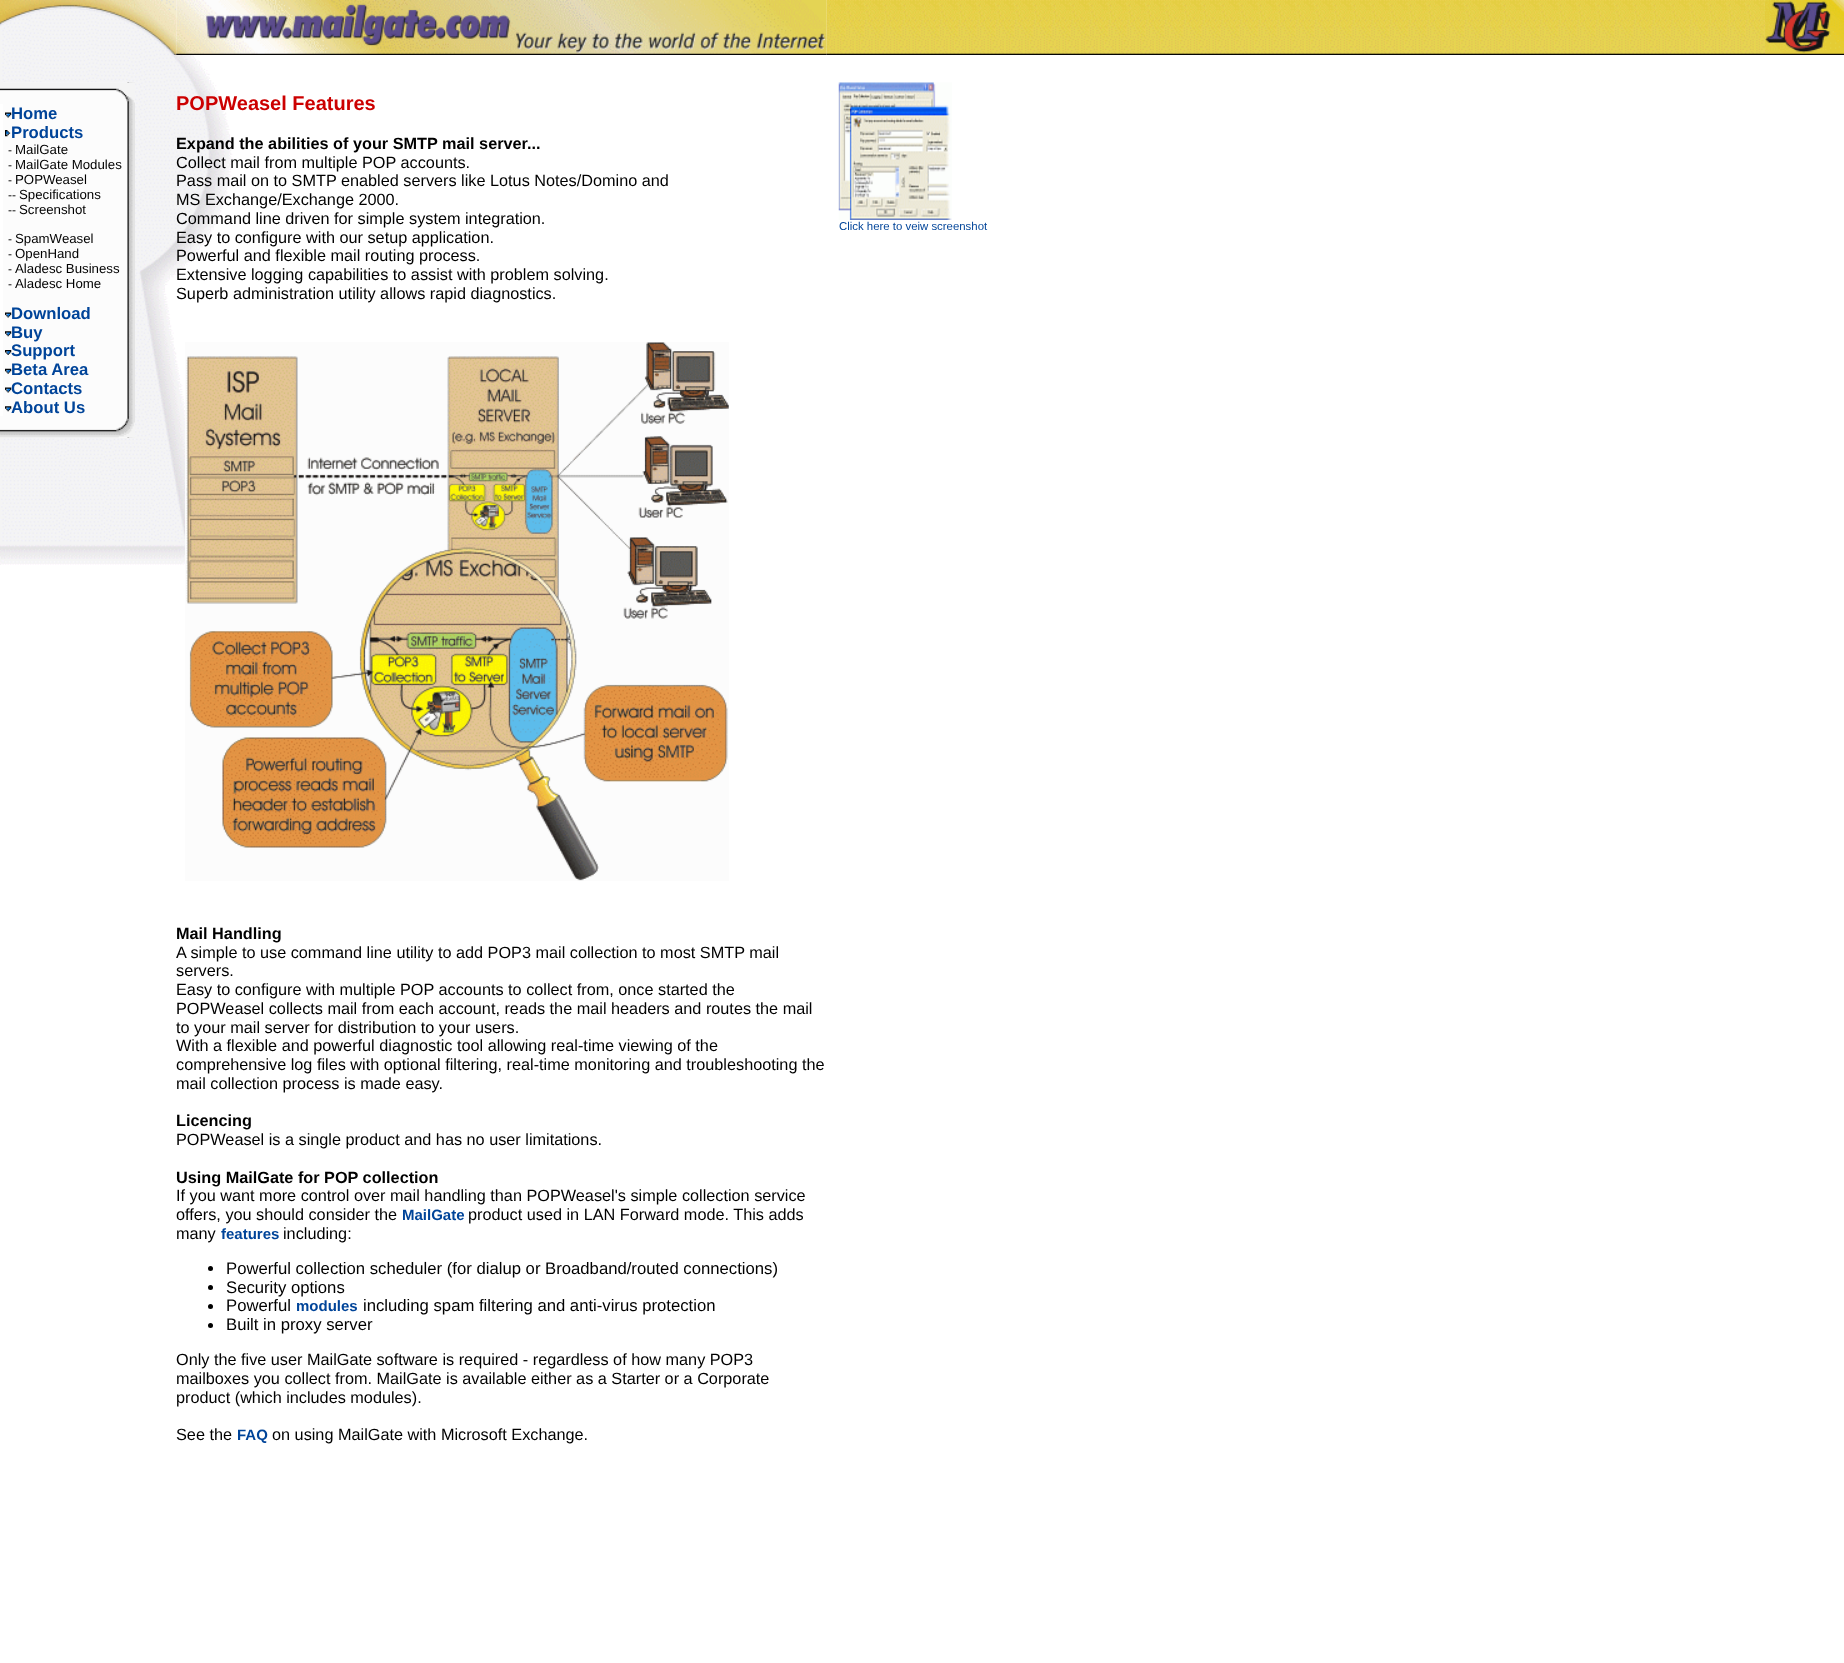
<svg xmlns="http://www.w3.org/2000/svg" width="1844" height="1663">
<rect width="100%" height="100%" fill="#fff"/>
<image x="0" y="7" width="233" height="558" href="media/1.png"/>
<image x="0" y="0" width="177" height="55" href="media/2.png"/>
<image x="826" y="0" width="1018" height="55" href="media/4.png"/>
<image x="176" y="0" width="651" height="55" href="media/3.png"/>
<image x="1765" y="0" width="79" height="54" href="media/5.png"/>
<rect y="103" width="135" height="335" fill="#fff"/>
<image x="3" y="82" width="132" height="356" href="media/6.png"/>
<image x="0" y="82" width="135" height="22" href="media/7.png"/>
<image x="5" y="112" width="7" height="6" href="media/8.png"/>
<text x="11" y="119" style="font-family:Liberation Sans;font-size:16.7px;font-weight:bold;fill:#049">Home</text>
<image x="5" y="130" width="6" height="7" href="media/9.png"/>
<text x="11" y="138" style="font-family:Liberation Sans;font-size:16.7px;font-weight:bold;fill:#049">Products</text>
<text x="8" y="154" style="font-family:Liberation Sans;font-size:12px;fill:#000">-</text>
<text x="15" y="154" style="font-family:Liberation Sans;font-size:13.25px;fill:#000">MailGate</text>
<text x="8" y="169" style="font-family:Liberation Sans;font-size:12px;fill:#000">-</text>
<text x="15" y="169" style="font-family:Liberation Sans;font-size:13.25px;fill:#000">MailGate Modules</text>
<text x="8" y="184" style="font-family:Liberation Sans;font-size:12px;fill:#000">-</text>
<text x="15" y="184" style="font-family:Liberation Sans;font-size:13.25px;fill:#000">POPWeasel</text>
<text x="8" y="199" style="font-family:Liberation Sans;font-size:12px;fill:#000">--</text>
<text x="19" y="199" style="font-family:Liberation Sans;font-size:13.25px;fill:#000">Specifications</text>
<text x="8" y="214" style="font-family:Liberation Sans;font-size:12px;fill:#000">--</text>
<text x="19" y="214" style="font-family:Liberation Sans;font-size:13.25px;fill:#000">Screenshot</text>
<text x="8" y="243" style="font-family:Liberation Sans;font-size:12px;fill:#000">-</text>
<text x="15" y="243" style="font-family:Liberation Sans;font-size:13.25px;fill:#000">SpamWeasel</text>
<text x="8" y="258" style="font-family:Liberation Sans;font-size:12px;fill:#000">-</text>
<text x="15" y="258" style="font-family:Liberation Sans;font-size:13.25px;fill:#000">OpenHand</text>
<text x="8" y="273" style="font-family:Liberation Sans;font-size:12px;fill:#000">-</text>
<text x="15" y="273" style="font-family:Liberation Sans;font-size:13.25px;fill:#000">Aladesc Business</text>
<text x="8" y="288" style="font-family:Liberation Sans;font-size:12px;fill:#000">-</text>
<text x="15" y="288" style="font-family:Liberation Sans;font-size:13.25px;fill:#000">Aladesc Home</text>
<image x="5" y="312" width="7" height="6" href="media/8.png"/>
<text x="11" y="319" style="font-family:Liberation Sans;font-size:16.7px;font-weight:bold;fill:#049">Download</text>
<image x="5" y="331" width="7" height="6" href="media/10.png"/>
<text x="11" y="338" style="font-family:Liberation Sans;font-size:16.7px;font-weight:bold;fill:#049">Buy</text>
<image x="5" y="350" width="7" height="5" href="media/11.png"/>
<text x="11" y="356" style="font-family:Liberation Sans;font-size:16.7px;font-weight:bold;fill:#049">Support</text>
<image x="5" y="368" width="7" height="6" href="media/12.png"/>
<text x="11" y="375" style="font-family:Liberation Sans;font-size:16.7px;font-weight:bold;fill:#049">Beta Area</text>
<image x="5" y="387" width="7" height="6" href="media/8.png"/>
<text x="11" y="394" style="font-family:Liberation Sans;font-size:16.7px;font-weight:bold;fill:#049">Contacts</text>
<image x="5" y="406" width="7" height="6" href="media/10.png"/>
<text x="11" y="413" style="font-family:Liberation Sans;font-size:16.7px;font-weight:bold;fill:#049">About Us</text>
<image x="0" y="416" width="135" height="22" href="media/13.png"/>
<text x="176" y="110" style="font-family:Liberation Sans;font-size:20px;font-weight:bold;fill:#c00">POPWeasel Features</text>
<text x="176" y="149" style="font-family:Liberation Sans;font-size:16.25px;font-weight:bold;fill:#000">Expand the abilities of your SMTP mail server...</text>
<text x="176" y="168" style="font-family:Liberation Sans;font-size:16.25px;fill:#000">Collect mail from multiple POP accounts.</text>
<text x="176" y="186" style="font-family:Liberation Sans;font-size:16.25px;fill:#000">Pass mail on to SMTP enabled servers like Lotus Notes/Domino and</text>
<text x="176" y="205" style="font-family:Liberation Sans;font-size:16.25px;fill:#000">MS Exchange/Exchange 2000.</text>
<text x="176" y="224" style="font-family:Liberation Sans;font-size:16.25px;fill:#000">Command line driven for simple system integration.</text>
<text x="176" y="243" style="font-family:Liberation Sans;font-size:16.25px;fill:#000">Easy to configure with our setup application.</text>
<text x="176" y="261" style="font-family:Liberation Sans;font-size:16.25px;fill:#000">Powerful and flexible mail routing process.</text>
<text x="176" y="280" style="font-family:Liberation Sans;font-size:16.25px;fill:#000">Extensive logging capabilities to assist with problem solving.</text>
<text x="176" y="299" style="font-family:Liberation Sans;font-size:16.25px;fill:#000">Superb administration utility allows rapid diagnostics.</text>
<image x="185" y="342" width="544" height="539" href="media/14.png"/>
<text x="176" y="939" style="font-family:Liberation Sans;font-size:16.25px;font-weight:bold;fill:#000">Mail Handling</text>
<text x="176" y="958" style="font-family:Liberation Sans;font-size:16.25px;fill:#000">A simple to use command line utility to add POP3 mail collection to most SMTP mail</text>
<text x="176" y="976" style="font-family:Liberation Sans;font-size:16.25px;fill:#000">servers.</text>
<text x="176" y="995" style="font-family:Liberation Sans;font-size:16.25px;fill:#000">Easy to configure with multiple POP accounts to collect from, once started the</text>
<text x="176" y="1014" style="font-family:Liberation Sans;font-size:16.25px;fill:#000">POPWeasel collects mail from each account, reads the mail headers and routes the mail</text>
<text x="176" y="1033" style="font-family:Liberation Sans;font-size:16.25px;fill:#000">to your mail server for distribution to your users.</text>
<text x="176" y="1051" style="font-family:Liberation Sans;font-size:16.25px;fill:#000">With a flexible and powerful diagnostic tool allowing real-time viewing of the</text>
<text x="176" y="1070" style="font-family:Liberation Sans;font-size:16.25px;fill:#000">comprehensive log files with optional filtering, real-time monitoring and troubleshooting the</text>
<text x="176" y="1089" style="font-family:Liberation Sans;font-size:16.25px;fill:#000">mail collection process is made easy.</text>
<text x="176" y="1126" style="font-family:Liberation Sans;font-size:16.25px;font-weight:bold;fill:#000">Licencing</text>
<text x="176" y="1145" style="font-family:Liberation Sans;font-size:16.25px;fill:#000">POPWeasel is a single product and has no user limitations.</text>
<text x="176" y="1183" style="font-family:Liberation Sans;font-size:16.25px;font-weight:bold;fill:#000">Using MailGate for POP collection</text>
<text x="176" y="1201" style="font-family:Liberation Sans;font-size:16.25px;fill:#000">If you want more control over mail handling than POPWeasel's simple collection service</text>
<text x="176" y="1220" style="font-family:Liberation Sans;font-size:16.25px;fill:#000">offers, you should consider the</text>
<text x="402" y="1220" style="font-family:Liberation Sans;font-size:15px;font-weight:bold;fill:#049">MailGate</text>
<text x="468" y="1220" style="font-family:Liberation Sans;font-size:16.25px;fill:#000">product used in LAN Forward mode. This adds</text>
<text x="176" y="1239" style="font-family:Liberation Sans;font-size:16.25px;fill:#000">many</text>
<text x="221" y="1239" style="font-family:Liberation Sans;font-size:15px;font-weight:bold;fill:#049">features</text>
<text x="283" y="1239" style="font-family:Liberation Sans;font-size:16.25px;fill:#000">including:</text>
<circle cx="210.5" cy="1268.5" r="2.5" fill="#000"/>
<text x="226" y="1274" style="font-family:Liberation Sans;font-size:16.7px;fill:#000">Powerful collection scheduler (for dialup or Broadband/routed connections)</text>
<circle cx="210.5" cy="1287.5" r="2.5" fill="#000"/>
<text x="226" y="1293" style="font-family:Liberation Sans;font-size:16.7px;fill:#000">Security options</text>
<circle cx="210.5" cy="1306.5" r="2.5" fill="#000"/>
<text x="226" y="1311" style="font-family:Liberation Sans;font-size:16.7px;fill:#000">Powerful</text>
<text x="296" y="1311" style="font-family:Liberation Sans;font-size:15px;font-weight:bold;fill:#049">modules</text>
<text x="363" y="1311" style="font-family:Liberation Sans;font-size:16.7px;fill:#000">including spam filtering and anti-virus protection</text>
<circle cx="210.5" cy="1325.5" r="2.5" fill="#000"/>
<text x="226" y="1330" style="font-family:Liberation Sans;font-size:16.7px;fill:#000">Built in proxy server</text>
<text x="176" y="1365" style="font-family:Liberation Sans;font-size:16.25px;fill:#000">Only the five user MailGate software is required - regardless of how many POP3</text>
<text x="176" y="1384" style="font-family:Liberation Sans;font-size:16.25px;fill:#000">mailboxes you collect from. MailGate is available either as a Starter or a Corporate</text>
<text x="176" y="1403" style="font-family:Liberation Sans;font-size:16.25px;fill:#000">product (which includes modules).</text>
<text x="176" y="1440" style="font-family:Liberation Sans;font-size:16.25px;fill:#000">See the</text>
<text x="237" y="1440" style="font-family:Liberation Sans;font-size:15px;font-weight:bold;fill:#049">FAQ</text>
<text x="272" y="1440" style="font-family:Liberation Sans;font-size:16.25px;fill:#000">on using MailGate with Microsoft Exchange.</text>
<image x="838" y="82" width="114" height="138" href="media/15.png"/>
<text x="839" y="230" style="font-family:Liberation Sans;font-size:11.4px;fill:#049">Click here to veiw screenshot</text>
</svg>
